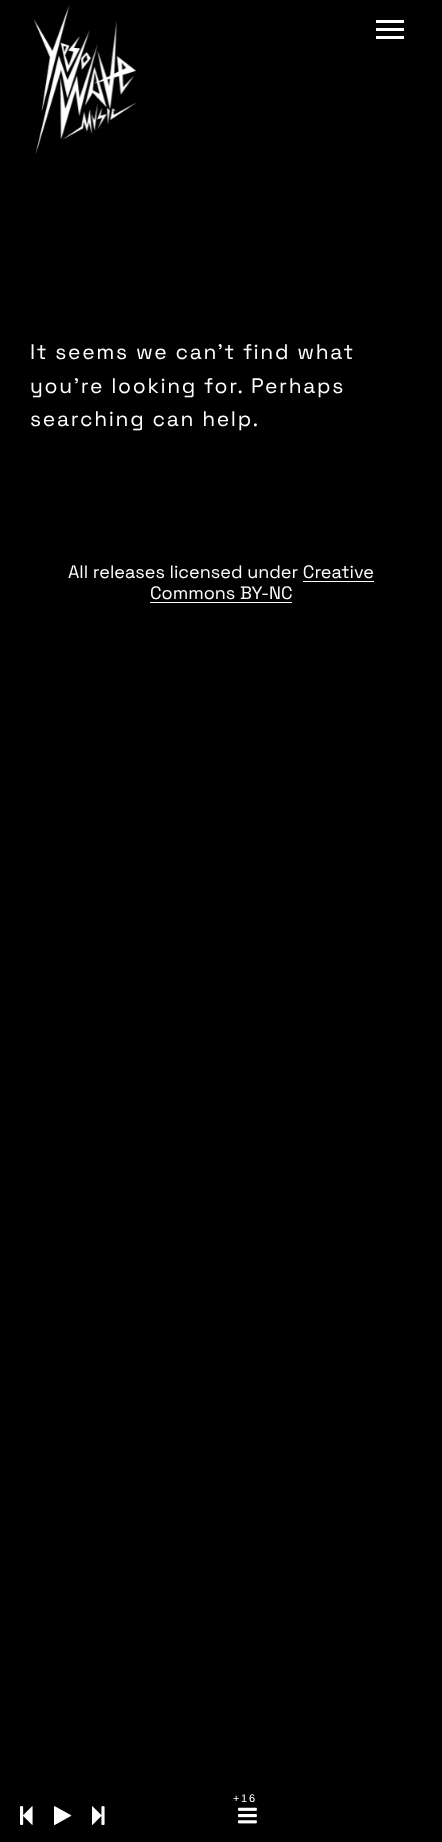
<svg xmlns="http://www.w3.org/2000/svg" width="442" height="1842">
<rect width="100%" height="100%" fill="#000"/>
<image x="34" y="5" width="103" height="149" href="media/1.png"/>
<rect x="376" y="28" width="28" height="3" fill="#fff"/>
<rect x="376" y="20" width="28" height="3" fill="#fff"/>
<rect x="376" y="36" width="28" height="3" fill="#fff"/>
<text x="30" y="359" style="font-family:Space Grotesk;font-size:21px;letter-spacing:1.7px;fill:#fff">It seems we can’t find what</text>
<text x="30" y="393" style="font-family:Space Grotesk;font-size:21px;letter-spacing:1.7px;fill:#fff">you’re looking for. Perhaps</text>
<text x="30" y="426" style="font-family:Space Grotesk;font-size:21px;letter-spacing:1.7px;fill:#fff">searching can help.</text>
<text x="68" y="578" style="font-family:Space Grotesk;font-size:18px;fill:#fff">All releases licensed under Creative</text>
<text x="150" y="599" style="font-family:Space Grotesk;font-size:18px;fill:#fff">Commons BY-NC</text>
<rect x="303" y="581" width="71" height="1" fill="#fff"/>
<rect x="150" y="602" width="142" height="1" fill="#fff"/>
<text x="233" y="1802" style="font-family:Liberation Sans;font-size:11px;letter-spacing:1.7px;fill:#fff">+16</text>
<image x="238" y="1807" width="19" height="17" href="media/2.png"/>
<image x="20" y="1806" width="13" height="19" href="media/3.png"/>
<image x="54" y="1806" width="18" height="19" href="media/4.png"/>
<image x="92" y="1806" width="13" height="19" href="media/5.png"/>
</svg>
